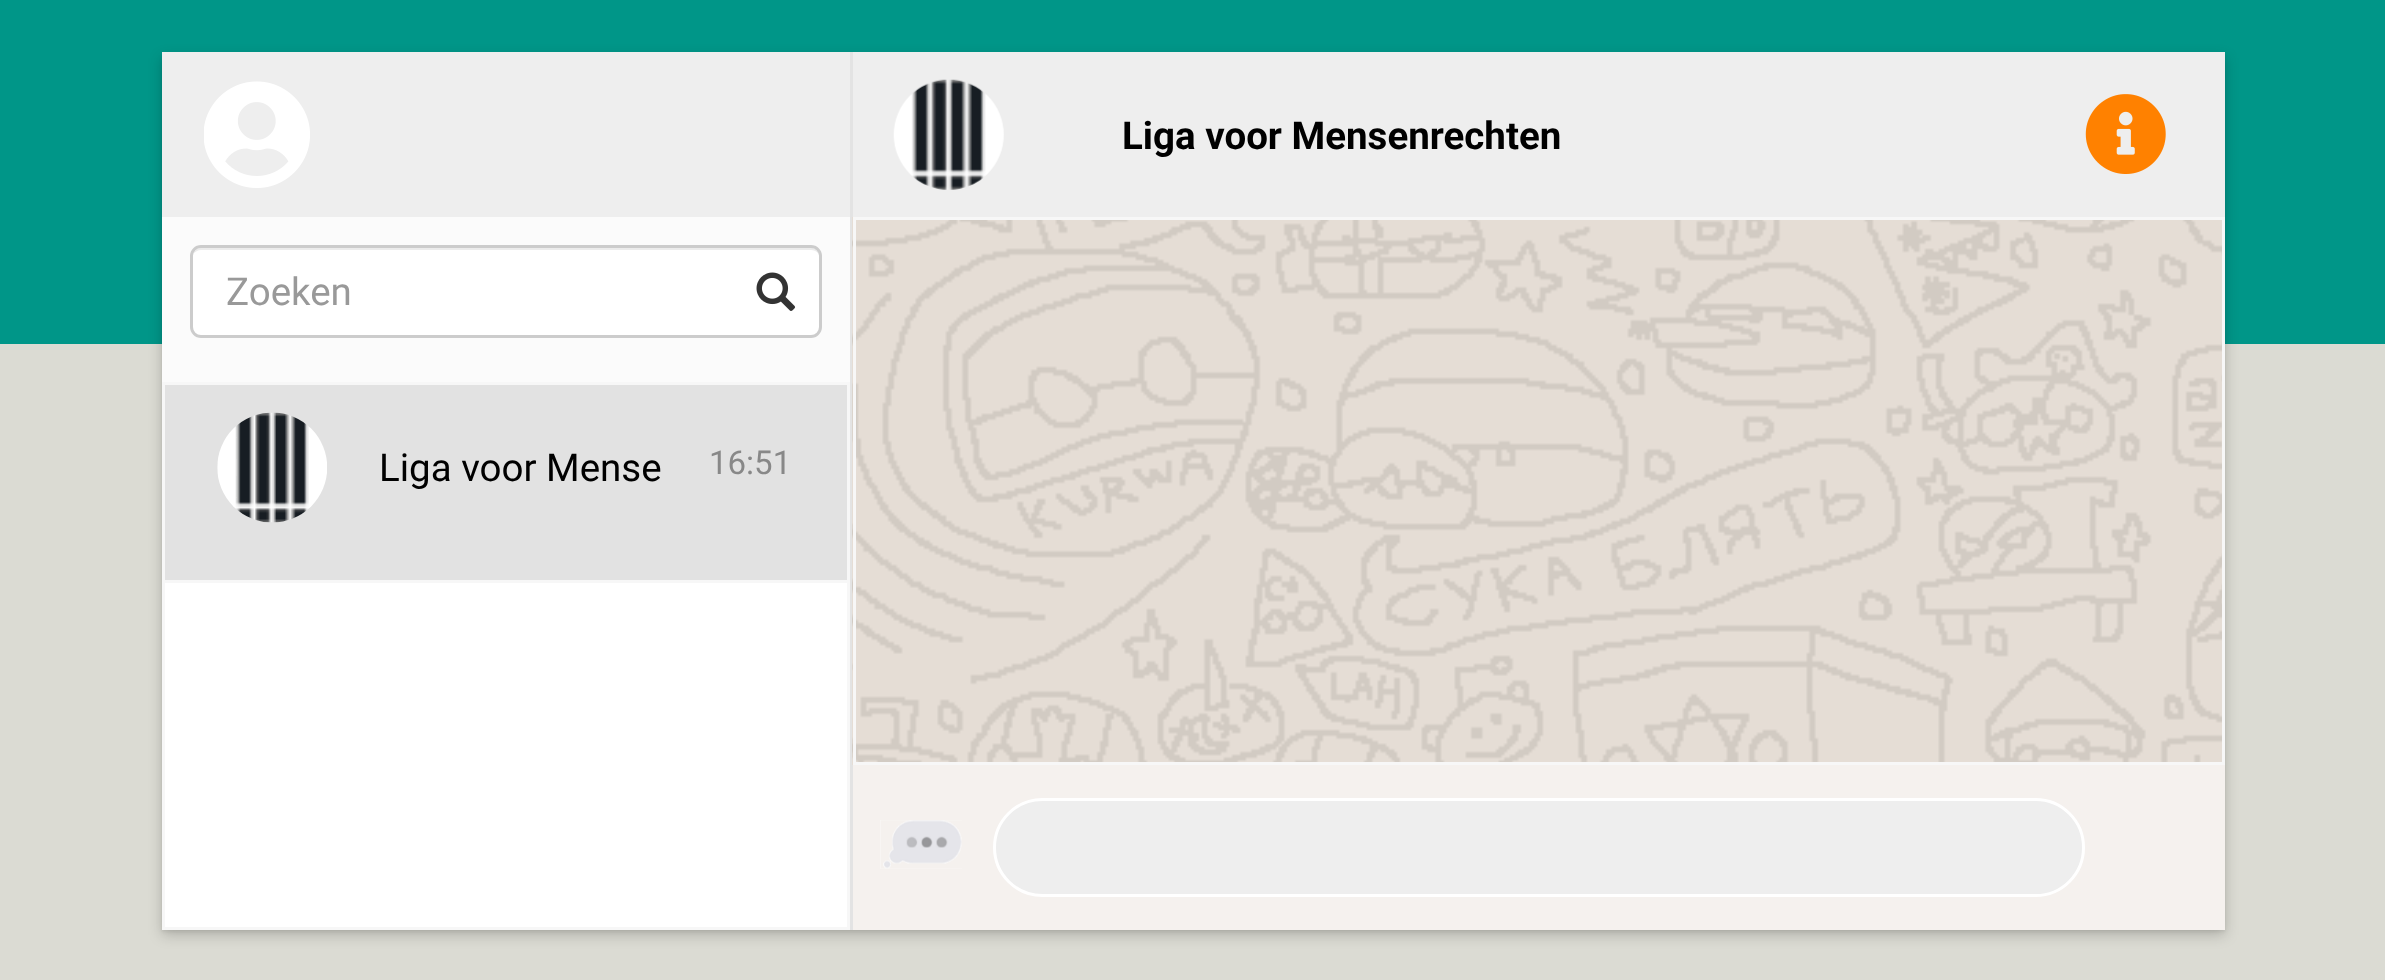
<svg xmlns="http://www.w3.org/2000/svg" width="2385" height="980">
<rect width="100%" height="100%" fill="#dbdbd3"/>
<rect width="2385" height="344" fill="#009688"/>
<rect x="162" y="58" width="2063" height="877" fill="#00000033" filter="blur(7px)"/>
<rect x="162" y="55" width="2063" height="877" fill="#0000000f" filter="blur(1.5px)"/>
<rect x="850" y="52" width="3" height="878" fill="#e3e3e3"/>
<rect x="853" y="52" width="1372" height="165" fill="#eee"/>
<image x="893" y="79" width="111" height="111" href="media/1.png"/>
<text x="1122" y="149" style="font-family:Roboto;font-size:38.5px;font-weight:bold;fill:#000">Liga voor Mensenrechten</text>
<image x="2085" y="94" width="81" height="80" href="media/2.png"/>
<image x="852" y="217" width="1370" height="548" href="media/3.png"/>
<rect x="854.5" y="218.5" width="1369" height="545" fill="none" stroke="#f7f7f7" stroke-width="3"/>
<rect x="853" y="765" width="1372" height="165" fill="#f5f1ee"/>
<image x="880" y="820" width="82" height="49" href="media/4.png"/>
<rect x="994.5" y="799.5" width="1089" height="96" rx="48" fill="#eee" stroke="#fff" stroke-width="3"/>
<rect x="162" y="52" width="688" height="165" fill="#eee"/>
<image x="204" y="81" width="106" height="107" href="media/5.png"/>
<rect x="162" y="217" width="688" height="165" fill="#fbfbfb"/>
<rect x="190" y="245" width="632" height="93" rx="11" fill="#fff"/>
<path d="M201 250h610c5 0 9 4 9 8v-2c0-4-4-8-8-8h-611c-4 0-7 3-8 6c2-2 5-4 8-4z" fill="#ececec"/>
<rect x="191.5" y="246.5" width="629" height="90" rx="9.5" fill="none" stroke="#ccc" stroke-width="3"/>
<text x="226" y="305" style="font-family:Roboto;font-size:38.5px;fill:#999">Zoeken</text>
<image x="756" y="272" width="40" height="39" href="media/6.png"/>
<rect x="165" y="583" width="682" height="344" fill="#fff"/>
<rect x="163.5" y="383.5" width="685" height="545" fill="none" stroke="#f7f7f7" stroke-width="3"/>
<rect x="165" y="385" width="682" height="195" fill="#e2e2e2"/>
<rect x="165" y="580" width="682" height="3" fill="#f7f7f7"/>
<image x="217" y="412" width="110" height="111" href="media/7.png"/>
<text x="379" y="481" style="font-family:Roboto;font-size:38.5px;fill:#000">Liga voor Mense</text>
<text x="709" y="474" style="font-family:Roboto;font-size:33px;fill:#888">16:51</text>
</svg>
